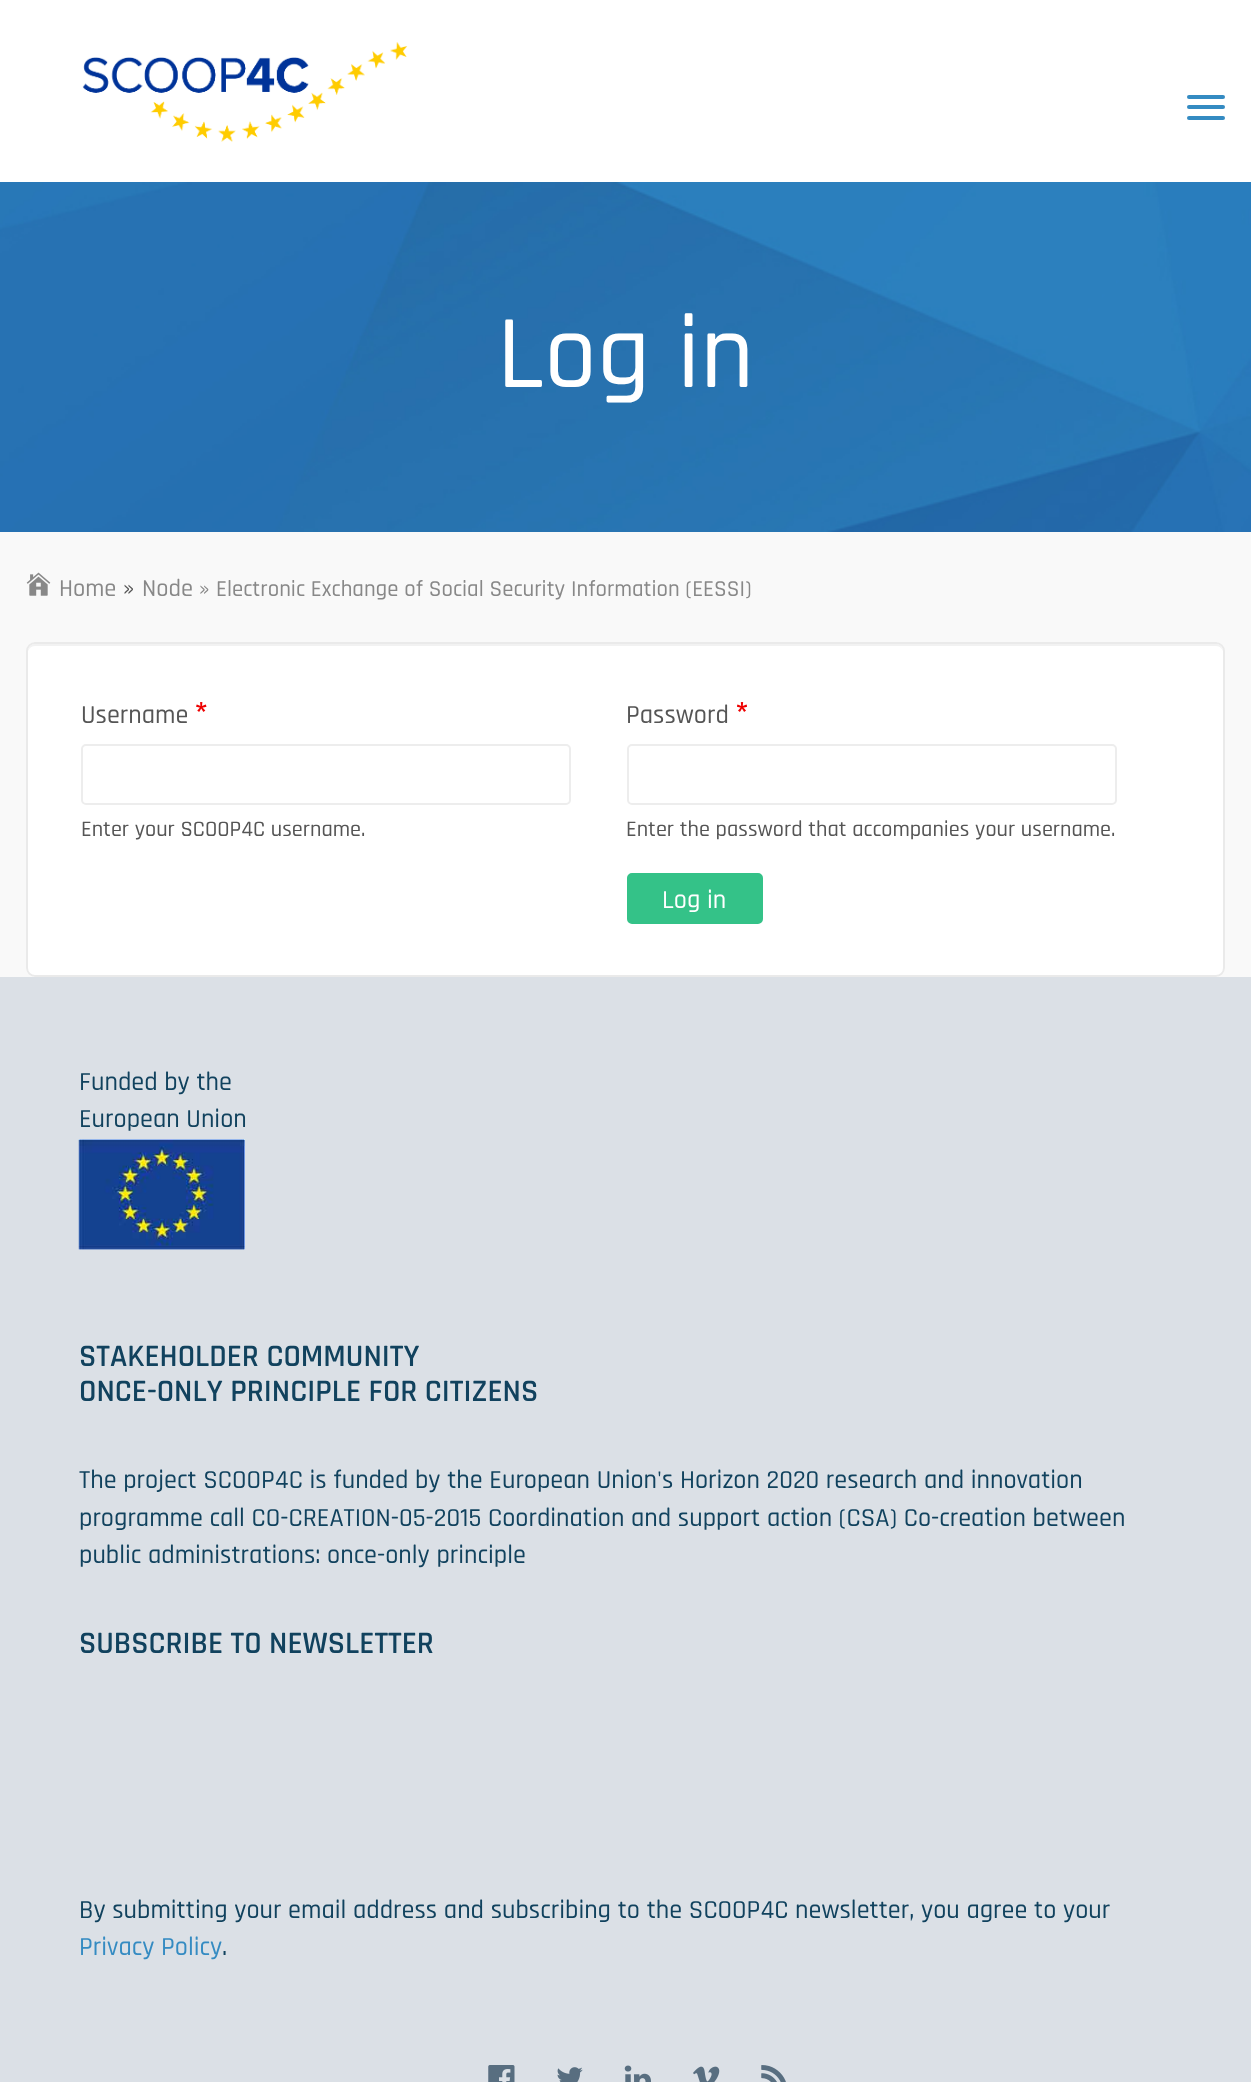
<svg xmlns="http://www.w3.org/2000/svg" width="1251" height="2082">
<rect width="100%" height="100%" fill="#f9f9f9"/>
<rect width="1251" height="182" fill="#fff"/>
<image x="82" y="42" width="326" height="100" href="media/1.png"/>
<rect x="1187" y="95" width="38" height="4" rx="2" fill="#348bc2"/>
<rect x="1187" y="105" width="38" height="4" rx="2" fill="#348bc2"/>
<rect x="1187" y="116" width="38" height="4" rx="2" fill="#348bc2"/>
<image x="0" y="182" width="1251" height="350" href="media/2.png"/>
<text x="497" y="387" style="font-family:Rajdhani;font-size:105px;font-weight:500;fill:#fff">Log in</text>
<image x="26" y="572" width="25" height="24" href="media/3.png"/>
<text x="59" y="596" style="font-family:Rajdhani;font-size:24.5px;font-weight:500;fill:#888">Home</text>
<text x="123" y="596" style="font-family:Rajdhani;font-size:26.25px;font-weight:500;fill:#555">»</text>
<text x="142" y="596" style="font-family:Rajdhani;font-size:24.5px;font-weight:500;fill:#888">Node</text>
<text x="199" y="596" style="font-family:Rajdhani;font-size:24.5px;font-weight:500;fill:#888">»</text>
<text x="216" y="596" style="font-family:Rajdhani;font-size:22.85px;font-weight:500;fill:#888">Electronic Exchange of Social Security Information (EESSI)</text>
<rect x="26" y="642" width="1199" height="335" rx="9" fill="#fff"/>
<path d="M35 646h1181c4 0 7 3 7 7c0-4-2-9-7-9h-1181c-5 0-7 5-7 9c0-4 3-7 7-7z" fill="#f2f2f2"/>
<rect x="27" y="643" width="1197" height="333" rx="8" fill="none" stroke="#eaeaea" stroke-width="2"/>
<text x="81" y="723" style="font-family:Rajdhani;font-size:26.25px;font-weight:500;fill:#555">Username</text>
<image x="196" y="702" width="11" height="10" href="media/4.png"/>
<rect x="82" y="745" width="488" height="59" rx="4" fill="none" stroke="#ededed" stroke-width="2"/>
<text x="81" y="836" style="font-family:Rajdhani;font-size:22.3px;font-weight:500;fill:#555">Enter your SCOOP4C username.</text>
<text x="626" y="723" style="font-family:Rajdhani;font-size:26.25px;font-weight:500;fill:#555">Password</text>
<image x="737" y="702" width="10" height="10" href="media/5.png"/>
<rect x="628" y="745" width="488" height="59" rx="4" fill="none" stroke="#ededed" stroke-width="2"/>
<text x="626" y="836" style="font-family:Rajdhani;font-size:22.3px;font-weight:500;fill:#555">Enter the password that accompanies your username.</text>
<rect x="628" y="874" width="134" height="49" rx="4" fill="#34c288" stroke="#34c288" stroke-width="2"/>
<text x="662" y="908" style="font-family:Rajdhani;font-size:26.25px;font-weight:500;fill:#fff">Log in</text>
<rect y="977" width="1251" height="1105" fill="#dbe0e6"/>
<text x="79" y="1090" style="font-family:Rajdhani;font-size:26.25px;font-weight:500;fill:#11425e">Funded by the</text>
<text x="79" y="1127" style="font-family:Rajdhani;font-size:26.25px;font-weight:500;fill:#11425e">European Union</text>
<image x="78" y="1139" width="167" height="111" href="media/6.png"/>
<text x="79" y="1366" style="font-family:Rajdhani;font-size:31.5px;font-weight:600;fill:#11425e">STAKEHOLDER COMMUNITY</text>
<text x="79" y="1401" style="font-family:Rajdhani;font-size:31.5px;font-weight:600;fill:#11425e">ONCE-ONLY PRINCIPLE FOR CITIZENS</text>
<text x="79" y="1488" style="font-family:Rajdhani;font-size:26.25px;font-weight:500;fill:#11425e">The project SCOOP4C is funded by the European Union's Horizon 2020 research and innovation</text>
<text x="79" y="1526" style="font-family:Rajdhani;font-size:26.25px;font-weight:500;fill:#11425e">programme call CO-CREATION-05-2015 Coordination and support action (CSA) Co-creation between</text>
<text x="79" y="1563" style="font-family:Rajdhani;font-size:26.25px;font-weight:500;fill:#11425e">public administrations: once-only principle</text>
<text x="79" y="1653" style="font-family:Rajdhani;font-size:31.5px;font-weight:600;fill:#11425e">SUBSCRIBE TO NEWSLETTER</text>
<text x="79" y="1918" style="font-family:Rajdhani;font-size:26.25px;font-weight:500;fill:#11425e">By submitting your email address and subscribing to the SCOOP4C newsletter, you agree to your</text>
<text x="79" y="1955" style="font-family:Rajdhani;font-size:26.25px;font-weight:500;fill:#348bc2">Privacy Policy</text>
<text x="222" y="1955" style="font-family:Rajdhani;font-size:26.25px;font-weight:500;fill:#11425e">.</text>
<image x="488" y="2065" width="27" height="17" href="media/7.png"/>
<image x="557" y="2067" width="26" height="15" href="media/8.png"/>
<image x="624" y="2065" width="27" height="17" href="media/9.png"/>
<image x="693" y="2066" width="27" height="16" href="media/10.png"/>
<image x="761" y="2065" width="25" height="17" href="media/11.png"/>
</svg>
